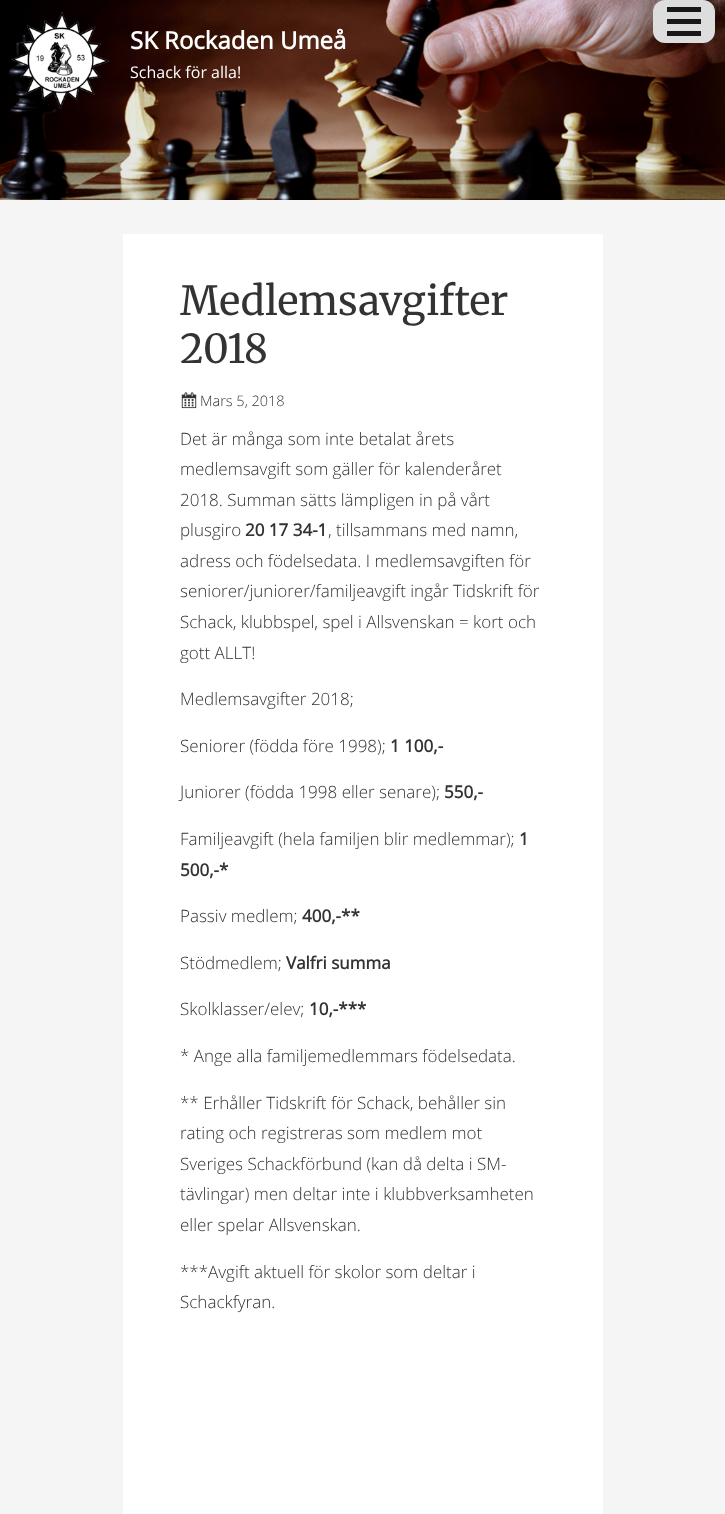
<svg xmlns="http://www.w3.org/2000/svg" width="725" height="1514">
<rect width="100%" height="100%" fill="#f5f5f5"/>
<image x="0" y="0" width="725" height="200" href="media/2.png"/>
<image x="11" y="12" width="99" height="97" href="media/1.png"/>
<rect x="653" width="62" height="43" rx="12" fill="#ddd"/>
<rect x="667" y="7" width="34" height="5" fill="#181818"/>
<rect x="667" y="19" width="34" height="5" fill="#181818"/>
<rect x="667" y="31" width="34" height="5" fill="#181818"/>
<text x="130" y="49" style="font-family:Open Sans;font-size:24px;font-weight:bold;fill:#fff">SK Rockaden Umeå</text>
<text x="130" y="78" style="font-family:Open Sans;font-size:16px;fill:#fff">Schack för alla!</text>
<rect x="123" y="234" width="480" height="1280" fill="#fff"/>
<text x="180" y="315" style="font-family:Merriweather;font-size:40px;font-weight:300;fill:#333">Medlemsavgifter</text>
<text x="180" y="363" style="font-family:Merriweather;font-size:40px;font-weight:300;fill:#333">2018</text>
<image x="181" y="392" width="16" height="17" href="media/3.png"/>
<text x="200" y="406" style="font-family:Open Sans;font-size:14.5px;font-weight:300;fill:#333">Mars 5, 2018</text>
<text x="180" y="445" style="font-family:Open Sans;font-size:17px;font-weight:300;fill:#333">Det är många som inte betalat årets</text>
<text x="180" y="475" style="font-family:Open Sans;font-size:17px;font-weight:300;fill:#333">medlemsavgift som gäller för kalenderåret</text>
<text x="180" y="506" style="font-family:Open Sans;font-size:17px;font-weight:300;fill:#333">2018. Summan sätts lämpligen in på vårt</text>
<text x="180" y="536" style="font-family:Open Sans;font-size:17px;font-weight:300;fill:#333">plusgiro</text>
<text x="245" y="536" style="font-family:Open Sans;font-size:17px;font-weight:bold;fill:#333">20 17 34-1</text>
<text x="328" y="536" style="font-family:Open Sans;font-size:17px;font-weight:300;fill:#333">, tillsammans med namn,</text>
<text x="180" y="567" style="font-family:Open Sans;font-size:17px;font-weight:300;fill:#333">adress och födelsedata. I medlemsavgiften för</text>
<text x="180" y="597" style="font-family:Open Sans;font-size:17px;font-weight:300;fill:#333">seniorer/juniorer/familjeavgift ingår Tidskrift för</text>
<text x="180" y="628" style="font-family:Open Sans;font-size:17px;font-weight:300;fill:#333">Schack, klubbspel, spel i Allsvenskan = kort och</text>
<text x="180" y="659" style="font-family:Open Sans;font-size:17px;font-weight:300;fill:#333">gott ALLT!</text>
<text x="180" y="705" style="font-family:Open Sans;font-size:17px;font-weight:300;fill:#333">Medlemsavgifter 2018;</text>
<text x="180" y="752" style="font-family:Open Sans;font-size:17px;font-weight:300;fill:#333">Seniorer (födda före 1998);</text>
<text x="390" y="752" style="font-family:Open Sans;font-size:17px;font-weight:bold;fill:#333">1 100,-</text>
<text x="180" y="798" style="font-family:Open Sans;font-size:17px;font-weight:300;fill:#333">Juniorer (födda 1998 eller senare);</text>
<text x="444" y="798" style="font-family:Open Sans;font-size:17px;font-weight:bold;fill:#333">550,-</text>
<text x="180" y="845" style="font-family:Open Sans;font-size:17px;font-weight:300;fill:#333">Familjeavgift (hela familjen blir medlemmar);</text>
<text x="519" y="845" style="font-family:Open Sans;font-size:17px;font-weight:bold;fill:#333">1</text>
<text x="180" y="876" style="font-family:Open Sans;font-size:17px;font-weight:bold;fill:#333">500,-*</text>
<text x="180" y="922" style="font-family:Open Sans;font-size:17px;font-weight:300;fill:#333">Passiv medlem;</text>
<text x="302" y="922" style="font-family:Open Sans;font-size:17px;font-weight:bold;fill:#333">400,-**</text>
<text x="180" y="969" style="font-family:Open Sans;font-size:17px;font-weight:300;fill:#333">Stödmedlem;</text>
<text x="286" y="969" style="font-family:Open Sans;font-size:17px;font-weight:bold;fill:#333">Valfri summa</text>
<text x="180" y="1015" style="font-family:Open Sans;font-size:17px;font-weight:300;fill:#333">Skolklasser/elev;</text>
<text x="309" y="1015" style="font-family:Open Sans;font-size:17px;font-weight:bold;fill:#333">10,-***</text>
<text x="180" y="1062" style="font-family:Open Sans;font-size:17px;font-weight:300;fill:#333">* Ange alla familjemedlemmars födelsedata.</text>
<text x="180" y="1109" style="font-family:Open Sans;font-size:17px;font-weight:300;fill:#333">** Erhåller Tidskrift för Schack, behåller sin</text>
<text x="180" y="1139" style="font-family:Open Sans;font-size:17px;font-weight:300;fill:#333">rating och registreras som medlem mot</text>
<text x="180" y="1170" style="font-family:Open Sans;font-size:17px;font-weight:300;fill:#333">Sveriges Schackförbund (kan då delta i SM-</text>
<text x="180" y="1200" style="font-family:Open Sans;font-size:17px;font-weight:300;fill:#333">tävlingar) men deltar inte i klubbverksamheten</text>
<text x="180" y="1231" style="font-family:Open Sans;font-size:17px;font-weight:300;fill:#333">eller spelar Allsvenskan.</text>
<text x="180" y="1278" style="font-family:Open Sans;font-size:17px;font-weight:300;fill:#333">***Avgift aktuell för skolor som deltar i</text>
<text x="180" y="1308" style="font-family:Open Sans;font-size:17px;font-weight:300;fill:#333">Schackfyran.</text>
</svg>
